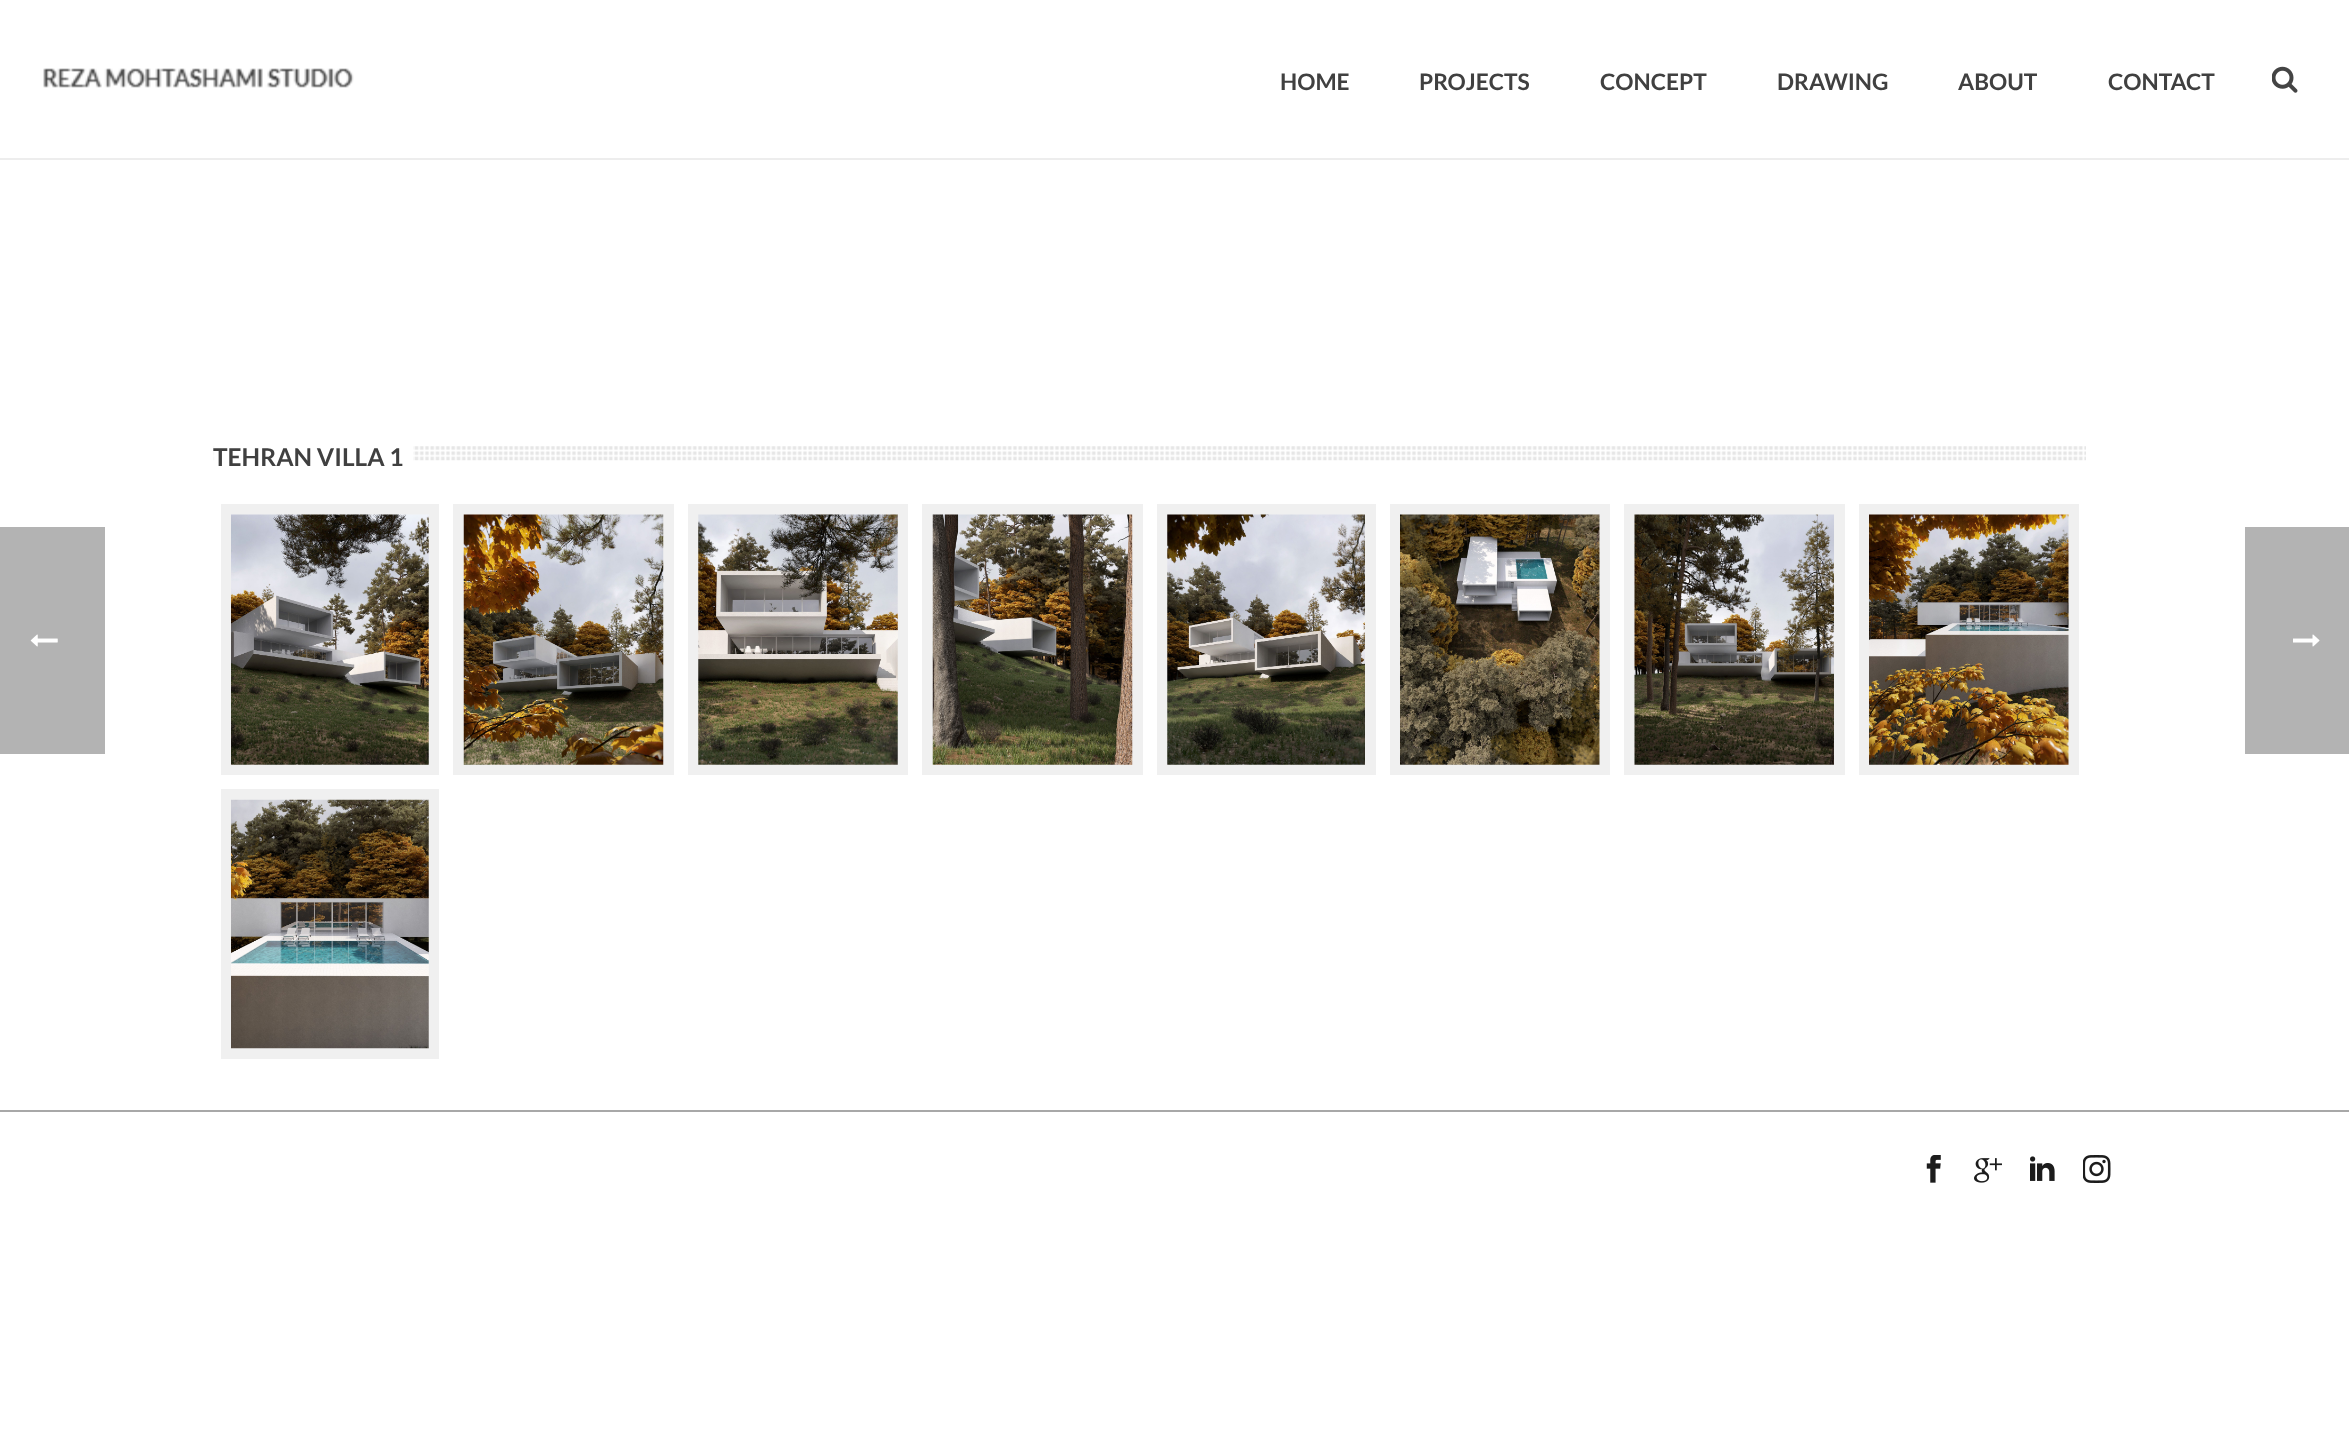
<svg xmlns="http://www.w3.org/2000/svg" width="2349" height="1454">
<rect width="100%" height="100%" fill="#fff"/>
<rect y="158" width="2349" height="2" fill="#ededed"/>
<image x="43" y="68" width="311" height="20" href="media/1.png"/>
<text x="1280" y="90" style="font-family:Lato;font-size:22.75px;font-weight:bold;fill:#404040">HOME</text>
<text x="1419" y="90" style="font-family:Lato;font-size:22.75px;font-weight:bold;fill:#404040">PROJECTS</text>
<text x="1600" y="90" style="font-family:Lato;font-size:22.75px;font-weight:bold;fill:#404040">CONCEPT</text>
<text x="1777" y="90" style="font-family:Lato;font-size:22.75px;font-weight:bold;fill:#404040">DRAWING</text>
<text x="1958" y="90" style="font-family:Lato;font-size:22.75px;font-weight:bold;fill:#404040">ABOUT</text>
<text x="2108" y="90" style="font-family:Lato;font-size:22.75px;font-weight:bold;fill:#404040">CONTACT</text>
<image x="2272" y="66" width="26" height="27" href="media/2.png"/>
<image x="213" y="446" width="1873" height="15" href="media/3.png"/>
<rect x="215" y="446" width="198" height="15" fill="#fff"/>
<text x="213" y="466" style="font-family:Lato;font-size:24.5px;font-weight:bold;fill:#404040">TEHRAN VILLA 1</text>
<rect x="226.5" y="509.5" width="207" height="260" fill="none" stroke="#f0f0f0" stroke-width="11"/>
<image x="231" y="514" width="198" height="251" href="media/4.png"/>
<rect x="458.5" y="509.5" width="210" height="260" fill="none" stroke="#f0f0f0" stroke-width="11"/>
<image x="463" y="514" width="201" height="251" href="media/5.png"/>
<rect x="693.5" y="509.5" width="209" height="260" fill="none" stroke="#f0f0f0" stroke-width="11"/>
<image x="698" y="514" width="200" height="251" href="media/6.png"/>
<rect x="927.5" y="509.5" width="210" height="260" fill="none" stroke="#f0f0f0" stroke-width="11"/>
<image x="932" y="514" width="201" height="251" href="media/7.png"/>
<rect x="1162.5" y="509.5" width="208" height="260" fill="none" stroke="#f0f0f0" stroke-width="11"/>
<image x="1167" y="514" width="198" height="251" href="media/8.png"/>
<rect x="1395.5" y="509.5" width="209" height="260" fill="none" stroke="#f0f0f0" stroke-width="11"/>
<image x="1400" y="514" width="200" height="251" href="media/9.png"/>
<rect x="1629.5" y="509.5" width="210" height="260" fill="none" stroke="#f0f0f0" stroke-width="11"/>
<image x="1634" y="514" width="200" height="251" href="media/10.png"/>
<rect x="1864.5" y="509.5" width="209" height="260" fill="none" stroke="#f0f0f0" stroke-width="11"/>
<image x="1869" y="514" width="200" height="251" href="media/11.png"/>
<rect x="226.5" y="794.5" width="207" height="259" fill="none" stroke="#f0f0f0" stroke-width="11"/>
<image x="231" y="799" width="198" height="250" href="media/12.png"/>
<rect y="1110" width="2349" height="2" fill="#a8a8a8"/>
<image x="1926" y="1155" width="15" height="28" href="media/13.png"/>
<image x="1974" y="1158" width="28" height="25" href="media/14.png"/>
<image x="2030" y="1156" width="25" height="25" href="media/15.png"/>
<image x="2083" y="1155" width="28" height="28" href="media/16.png"/>
<rect y="527" width="105" height="227" fill="#b3b3b3"/>
<image x="30" y="634" width="28" height="13" href="media/17.png"/>
<rect x="2245" y="527" width="104" height="227" fill="#b3b3b3"/>
<image x="2293" y="634" width="27" height="13" href="media/18.png"/>
</svg>
